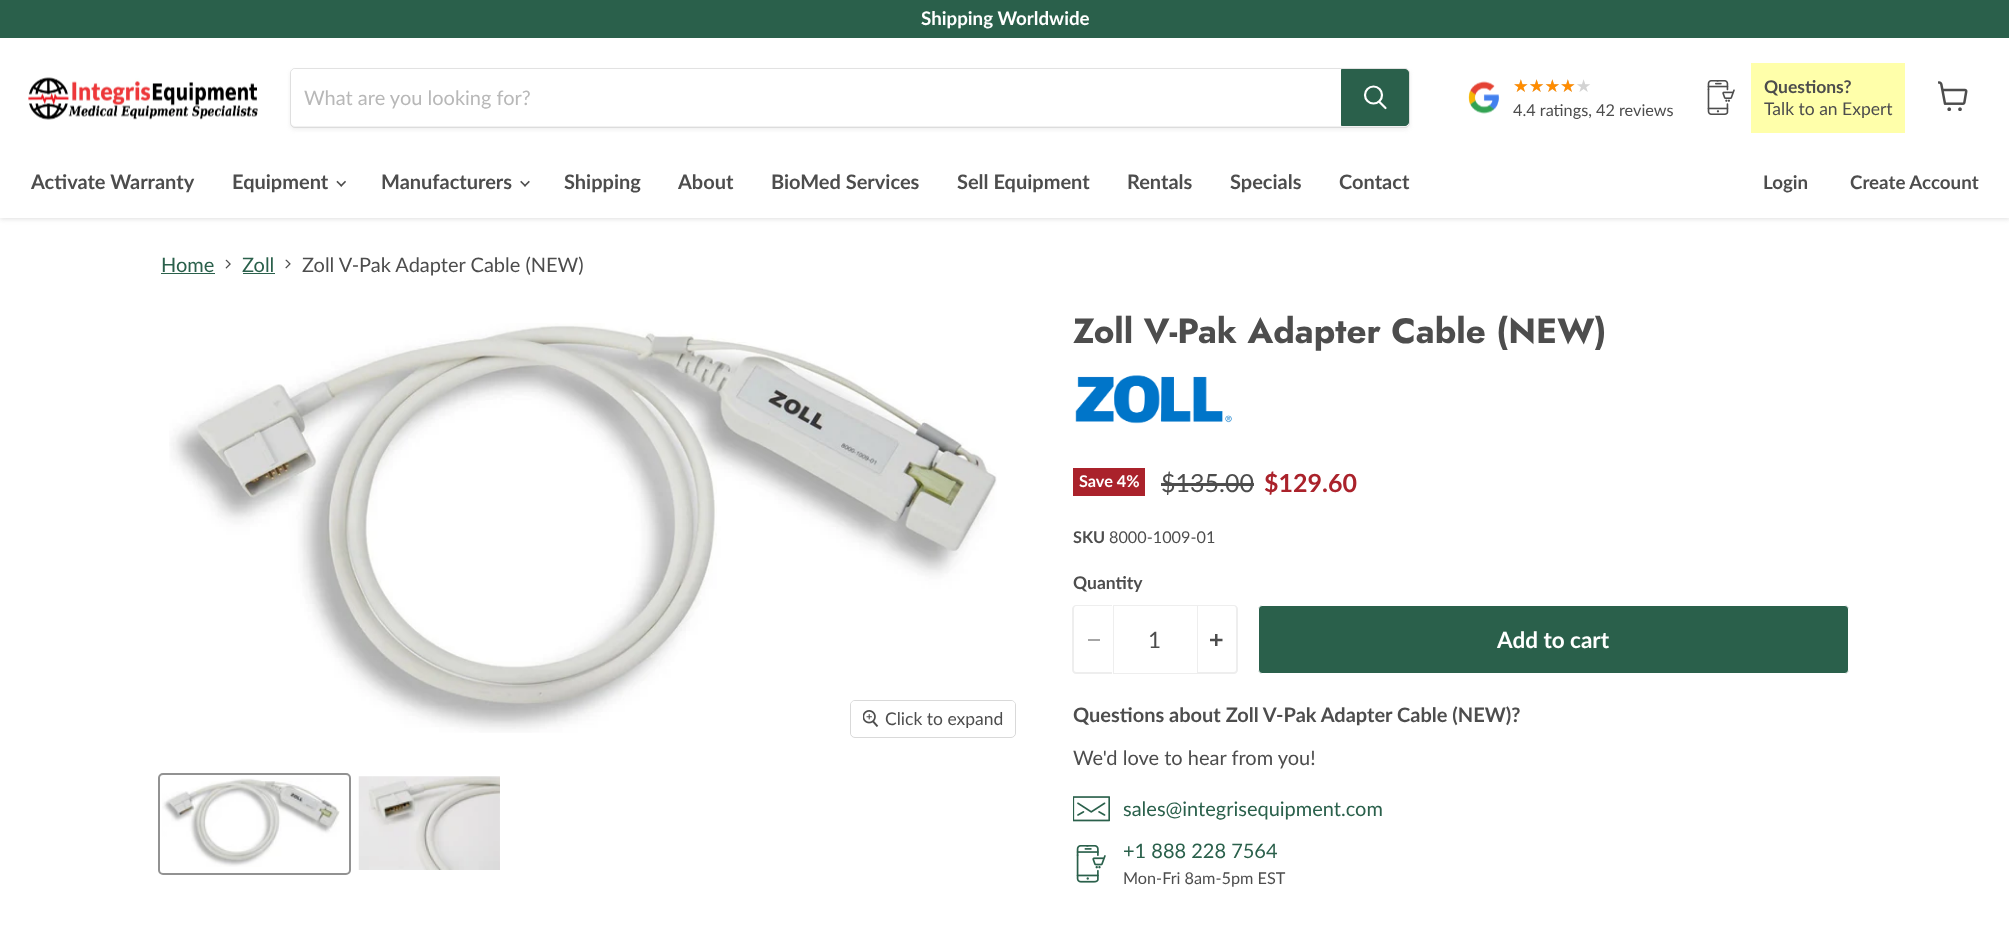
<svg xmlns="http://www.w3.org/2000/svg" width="2009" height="950">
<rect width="100%" height="100%" fill="#fff"/>
<rect y="39" width="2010" height="180" fill="#80808040" filter="blur(2.5px)"/>
<rect width="2009" height="38" fill="#2a604b"/>
<text x="921" y="25" style="font-family:Lato;font-size:18.75px;font-weight:bold;fill:#fff">Shipping Worldwide</text>
<rect y="38" width="2009" height="180" fill="#fff"/>
<image x="28" y="77" width="230" height="43" href="media/1.png"/>
<rect x="290" y="70" width="1120" height="60" rx="5" fill="#8080801c" filter="blur(2px)"/>
<rect x="290.5" y="68.5" width="1119" height="59" rx="4.5" fill="none" stroke="#80808033"/>
<path d="M295 69h1046v57h-1046c-2 0-4-2-4-4v-49c0-2 2-4 4-4z" fill="#fff"/>
<text x="304" y="105" style="font-family:Lato;font-size:20px;fill:#b8b8b8">What are you looking for?</text>
<path d="M1341.5 69.5h63.5c2 0 3.5 1.5 3.5 3.5v49c0 2-1.5 3.5-3.5 3.5h-63.5z" fill="#2a604b" stroke="#2a604b"/>
<path d="M1385.5 108l-6-6" fill="none" stroke="#fff" stroke-width="2.2" stroke-linecap="round"/>
<circle cx="1373.5" cy="95" r="8.5" fill="none" stroke="#fff" stroke-width="2.2"/>
<image x="1468" y="81" width="32" height="33" href="media/2.png"/>
<text x="1513" y="92" style="font-family:DejaVu Sans;font-size:17.5px;fill:#d3d3d3">★★★★★</text>
<text x="1513" y="92" style="font-family:DejaVu Sans;font-size:17.5px;fill:#ff8c00">★★★★</text>
<text x="1513" y="116" style="font-family:Lato;font-size:16.25px;fill:#4d4d4d">4.4 ratings, 42 reviews</text>
<image x="1707" y="80" width="28" height="35" href="media/3.png"/>
<rect x="1751" y="63" width="154" height="70" fill="#ffa"/>
<text x="1764" y="93" style="font-family:Lato;font-size:17.5px;font-weight:bold;fill:#4d4d4d">Questions?</text>
<text x="1764" y="115" style="font-family:Lato;font-size:17.5px;fill:#4d4d4d">Talk to an Expert</text>
<image x="1938" y="81" width="30" height="30" href="media/4.png"/>
<text x="31" y="189" style="font-family:Lato;font-size:20px;font-weight:bold;fill:#4d4d4d">Activate Warranty</text>
<text x="232" y="189" style="font-family:Lato;font-size:20px;font-weight:bold;fill:#4d4d4d">Equipment</text>
<image x="336" y="180" width="10" height="7" href="media/5.png"/>
<text x="381" y="189" style="font-family:Lato;font-size:20px;font-weight:bold;fill:#4d4d4d">Manufacturers</text>
<image x="520" y="180" width="10" height="7" href="media/6.png"/>
<text x="564" y="189" style="font-family:Lato;font-size:20px;font-weight:bold;fill:#4d4d4d">Shipping</text>
<text x="678" y="189" style="font-family:Lato;font-size:20px;font-weight:bold;fill:#4d4d4d">About</text>
<text x="771" y="189" style="font-family:Lato;font-size:20px;font-weight:bold;fill:#4d4d4d">BioMed Services</text>
<text x="957" y="189" style="font-family:Lato;font-size:20px;font-weight:bold;fill:#4d4d4d">Sell Equipment</text>
<text x="1127" y="189" style="font-family:Lato;font-size:20px;font-weight:bold;fill:#4d4d4d">Rentals</text>
<text x="1230" y="189" style="font-family:Lato;font-size:20px;font-weight:bold;fill:#4d4d4d">Specials</text>
<text x="1339" y="189" style="font-family:Lato;font-size:20px;font-weight:bold;fill:#4d4d4d">Contact</text>
<text x="1763" y="189" style="font-family:Lato;font-size:18.75px;font-weight:bold;fill:#4d4d4d">Login</text>
<text x="1850" y="189" style="font-family:Lato;font-size:18.75px;font-weight:bold;fill:#4d4d4d">Create Account</text>
<text x="161" y="272" style="font-family:Lato;font-size:20px;fill:#2a604b">Home</text>
<rect x="161" y="273" width="54" height="1" fill="#2a604b"/>
<image x="225" y="259" width="6" height="10" href="media/7.png"/>
<text x="242" y="272" style="font-family:Lato;font-size:20px;fill:#2a604b">Zoll</text>
<rect x="243" y="273" width="32" height="1" fill="#2a604b"/>
<image x="285" y="259" width="6" height="10" href="media/8.png"/>
<text x="302" y="272" style="font-family:Lato;font-size:20px;fill:#4d4d4d">Zoll V-Pak Adapter Cable (NEW)</text>
<image x="169" y="323" width="828" height="410" href="media/9.png"/>
<rect x="850.5" y="700.5" width="165" height="37" rx="4.5" fill="none" stroke="#d9d9d9"/>
<rect x="851" y="701" width="164" height="35" rx="4" fill="#ffffffe6"/>
<image x="863" y="710" width="16" height="17" href="media/10.png"/>
<text x="885" y="725" style="font-family:Lato;font-size:17.5px;fill:#4d4d4d">Click to expand</text>
<rect x="159" y="774" width="191" height="100" rx="4" fill="none" stroke="#929292" stroke-width="2"/>
<image x="162" y="778" width="178" height="89" href="media/11.png"/>
<image x="358" y="776" width="142" height="94" href="media/12.png"/>
<text x="1073" y="343" style="font-family:Jost;font-size:35px;font-weight:bold;fill:#4d4d4d">Zoll V-Pak Adapter Cable (NEW)</text>
<image x="1075" y="375" width="157" height="49" href="media/13.png"/>
<rect x="1073" y="468" width="72" height="28" fill="#aa222b"/>
<text x="1079" y="487" style="font-family:Lato;font-size:16.25px;font-weight:bold;fill:#fff">Save 4%</text>
<text x="1161" y="492" style="font-family:Lato;font-size:25px;fill:#4d4d4d">$135.00</text>
<rect x="1161" y="483" width="93" height="3" fill="#4d4d4d"/>
<text x="1264" y="492" style="font-family:Lato;font-size:25px;font-weight:bold;fill:#aa222b">$129.60</text>
<text x="1073" y="543" style="font-family:Lato;font-size:16.25px;font-weight:bold;fill:#4d4d4d">SKU</text>
<text x="1109" y="543" style="font-family:Lato;font-size:16.25px;fill:#4d4d4d">8000-1009-01</text>
<text x="1073" y="589" style="font-family:Lato;font-size:17.5px;font-weight:bold;fill:#4d4d4d">Quantity</text>
<path d="M1076 605h36v69h-36c-2 0-4-2-4-4v-61c0-2 2-4 4-4zm0 1h36v66h-36c-1 0-2-1-2-2v-61c0-2 1-3 2-3z" fill="#eee" fill-rule="evenodd"/>
<rect x="1088" y="639" width="12" height="2" fill="#a6a6a6"/>
<rect x="1113.5" y="605.5" width="84" height="68" fill="none" stroke="#eee"/>
<text x="1148" y="648" style="font-family:Lato;font-size:22.5px;fill:#4d4d4d">1</text>
<path d="M1198 605h36c2 0 4 2 4 4v61c0 2-2 4-4 4h-36zm0 1h36c1 0 2 1 2 3v61c0 1-1 2-2 2h-36z" fill="#eee" fill-rule="evenodd"/>
<image x="1210" y="634" width="13" height="12" href="media/14.png"/>
<rect x="1258.5" y="605.5" width="590" height="68" rx="3.5" fill="#2a604b" stroke="#fff"/>
<text x="1497" y="648" style="font-family:Lato;font-size:22.5px;font-weight:bold;fill:#fff">Add to cart</text>
<text x="1073" y="722" style="font-family:Lato;font-size:20px;font-weight:bold;fill:#4d4d4d">Questions about Zoll V-Pak Adapter Cable (NEW)?</text>
<text x="1073" y="765" style="font-family:Lato;font-size:20px;fill:#4d4d4d">We'd love to hear from you!</text>
<image x="1073" y="796" width="37" height="26" href="media/15.png"/>
<text x="1123" y="816" style="font-family:Lato;font-size:20px;fill:#2a604b">sales@integrisequipment.com</text>
<image x="1076" y="845" width="30" height="38" href="media/16.png"/>
<text x="1123" y="858" style="font-family:Lato;font-size:20px;fill:#2a604b">+1 888 228 7564</text>
<text x="1123" y="884" style="font-family:Lato;font-size:16.25px;fill:#4d4d4d">Mon-Fri 8am-5pm EST</text>
</svg>
